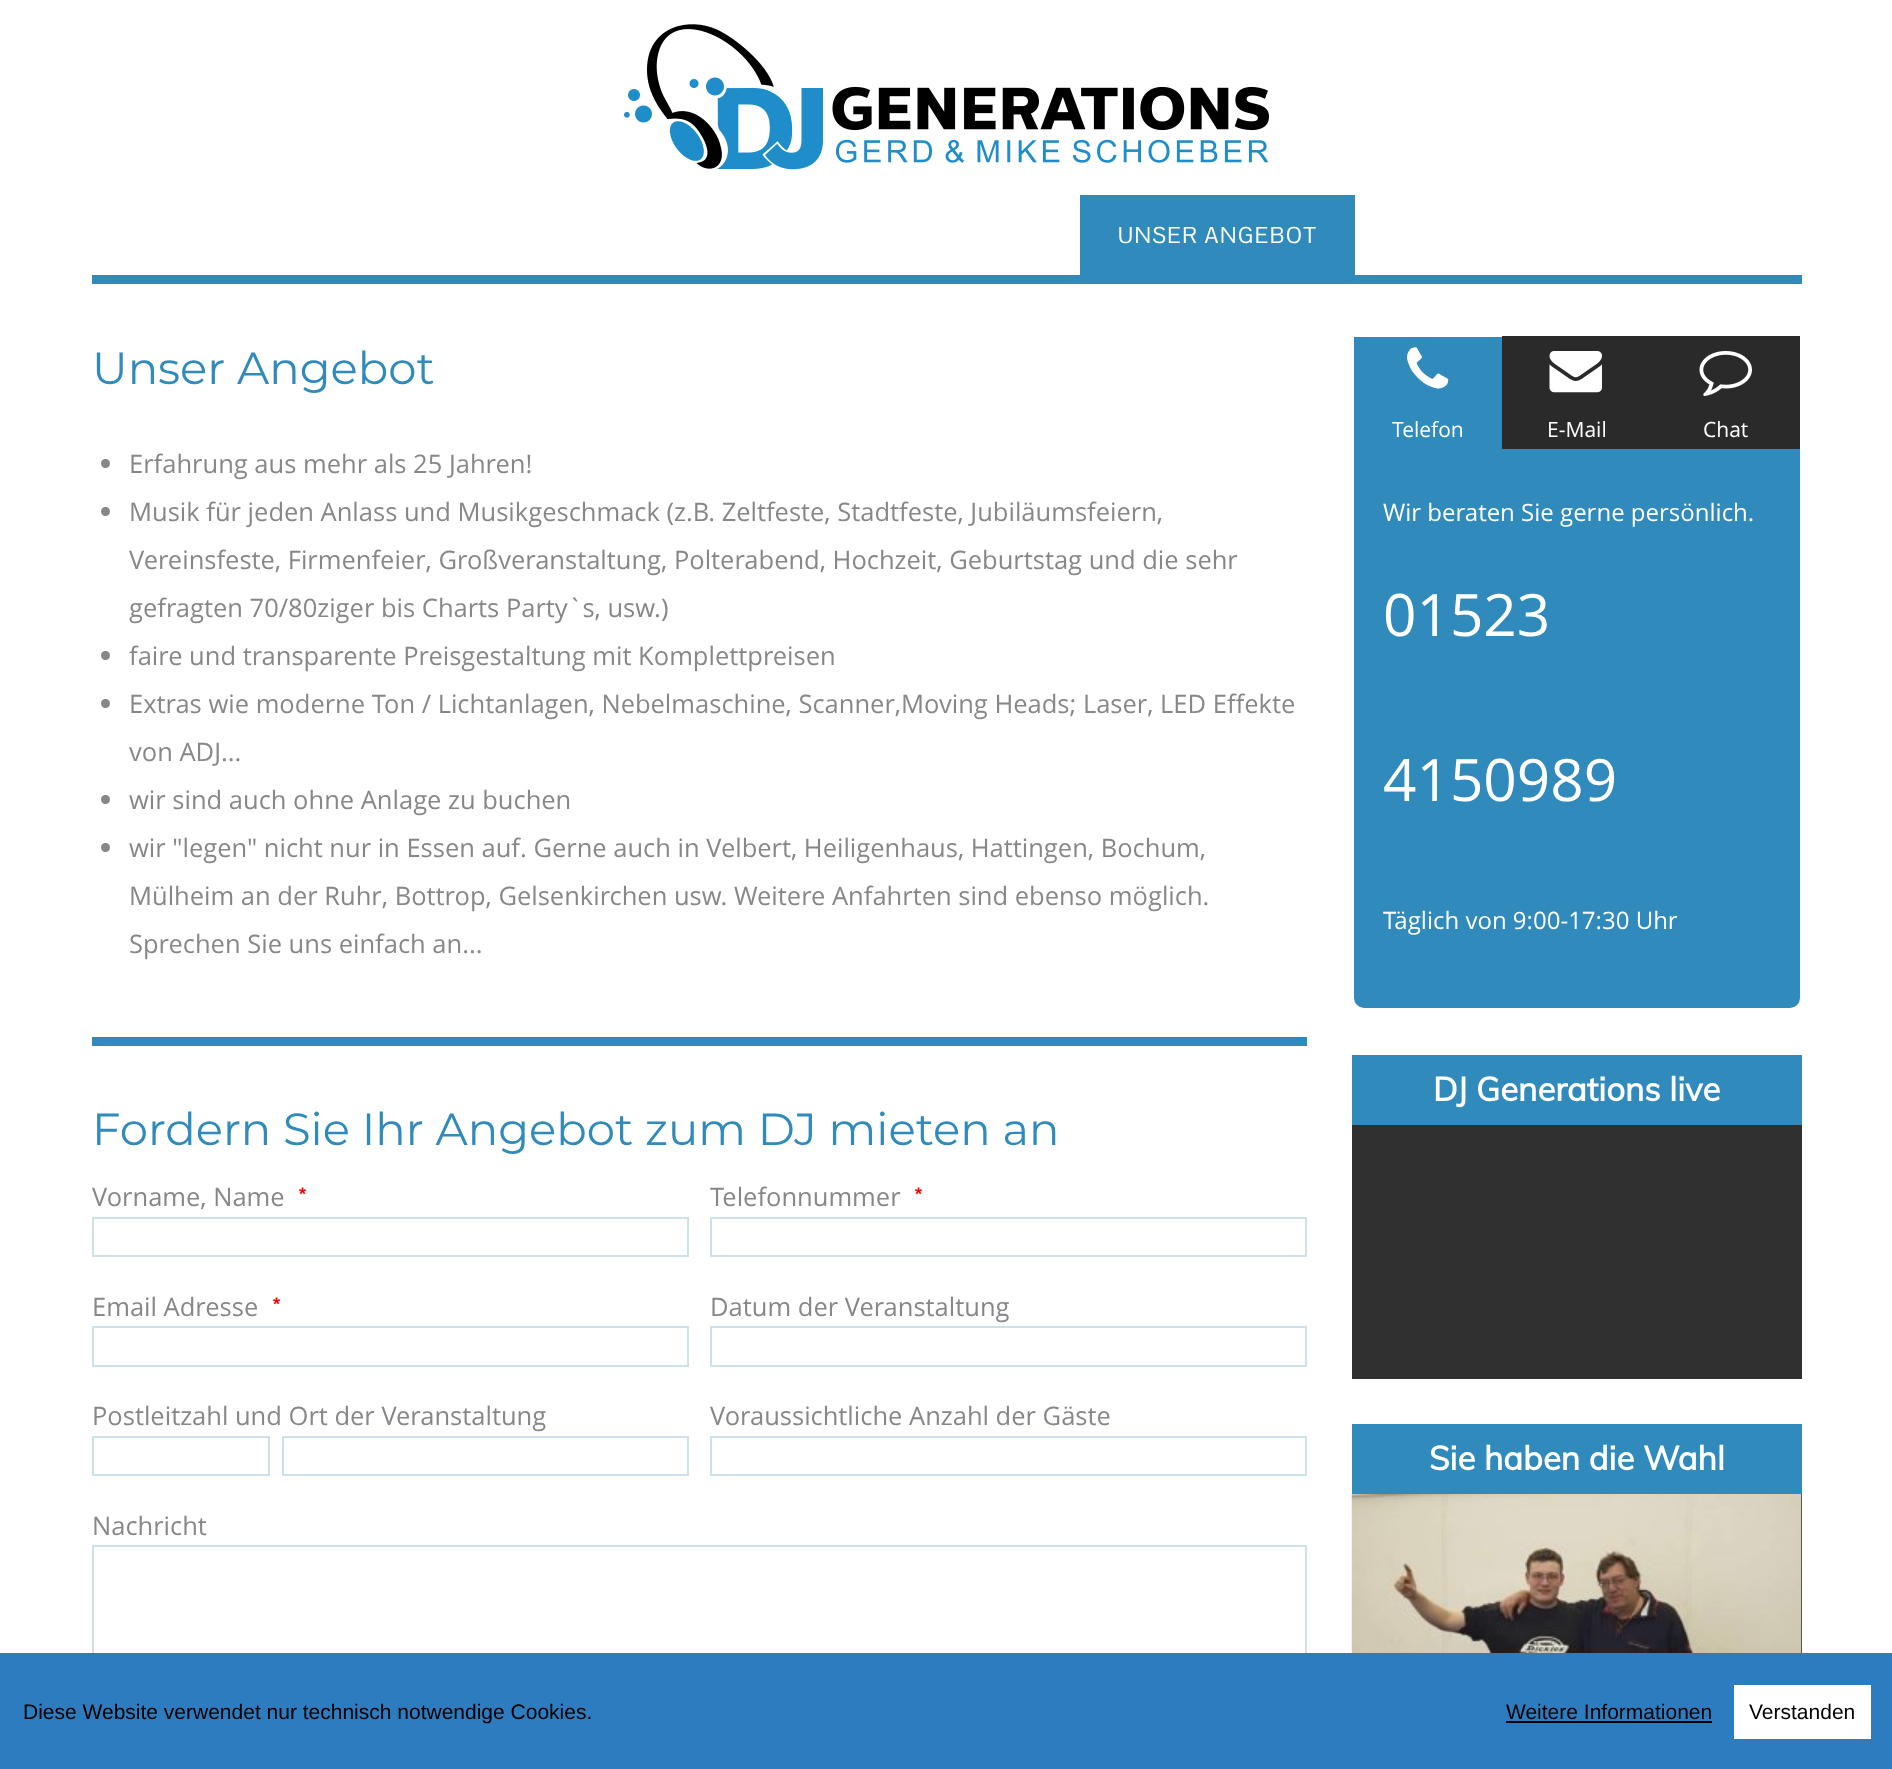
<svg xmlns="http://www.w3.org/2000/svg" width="1892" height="1769">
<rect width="100%" height="100%" fill="#fff"/>
<image x="624" y="24" width="645" height="146" href="media/1.png"/>
<rect x="92" y="275" width="1710" height="9" fill="#308bbc"/>
<rect x="1080" y="195" width="275" height="80" fill="#308bbc"/>
<text x="1118" y="243" style="font-family:Pontano Sans;font-size:22.5px;letter-spacing:1.5px;fill:#fff">UNSER ANGEBOT</text>
<rect x="92" y="1037" width="1215" height="9" fill="#308bbc"/>
<text x="92" y="384" style="font-family:Montserrat;font-size:45px;fill:#308bbc">Unser Angebot</text>
<circle cx="105.5" cy="463.5" r="4.5" fill="#878787"/>
<text x="129" y="473" style="font-family:Open Sans;font-size:25.5px;fill:#878787">Erfahrung aus mehr als 25 Jahren!</text>
<circle cx="105.5" cy="511.5" r="4.5" fill="#878787"/>
<text x="129" y="521" style="font-family:Open Sans;font-size:25.5px;fill:#878787">Musik für jeden Anlass und Musikgeschmack (z.B. Zeltfeste, Stadtfeste, Jubiläumsfeiern,</text>
<text x="129" y="569" style="font-family:Open Sans;font-size:25.5px;fill:#878787">Vereinsfeste, Firmenfeier, Großveranstaltung, Polterabend, Hochzeit, Geburtstag und die sehr</text>
<text x="129" y="617" style="font-family:Open Sans;font-size:25.5px;fill:#878787">gefragten 70/80ziger bis Charts Party`s, usw.)</text>
<circle cx="105.5" cy="655.5" r="4.5" fill="#878787"/>
<text x="129" y="665" style="font-family:Open Sans;font-size:25.5px;fill:#878787">faire und transparente Preisgestaltung mit Komplettpreisen</text>
<circle cx="105.5" cy="703.5" r="4.5" fill="#878787"/>
<text x="129" y="713" style="font-family:Open Sans;font-size:25.5px;fill:#878787">Extras wie moderne Ton / Lichtanlagen, Nebelmaschine, Scanner,Moving Heads; Laser, LED Effekte</text>
<text x="129" y="761" style="font-family:Open Sans;font-size:25.5px;fill:#878787">von ADJ...</text>
<circle cx="105.5" cy="799.5" r="4.5" fill="#878787"/>
<text x="129" y="809" style="font-family:Open Sans;font-size:25.5px;fill:#878787">wir sind auch ohne Anlage zu buchen</text>
<circle cx="105.5" cy="847.5" r="4.5" fill="#878787"/>
<text x="129" y="857" style="font-family:Open Sans;font-size:25.5px;fill:#878787">wir "legen" nicht nur in Essen auf. Gerne auch in Velbert, Heiligenhaus, Hattingen, Bochum,</text>
<text x="129" y="905" style="font-family:Open Sans;font-size:25.5px;fill:#878787">Mülheim an der Ruhr, Bottrop, Gelsenkirchen usw. Weitere Anfahrten sind ebenso möglich.</text>
<text x="129" y="953" style="font-family:Open Sans;font-size:25.5px;fill:#878787">Sprechen Sie uns einfach an...</text>
<text x="92" y="1145" style="font-family:Montserrat;font-size:45px;fill:#308bbc">Fordern Sie Ihr Angebot zum DJ mieten an</text>
<text x="92" y="1206" style="font-family:Open Sans;font-size:25.5px;fill:#878787">Vorname, Name</text>
<text x="299" y="1200" style="font-family:Liberation Sans;font-size:18px;font-weight:bold;fill:#f00">*</text>
<rect x="93" y="1218" width="595" height="38" fill="none" stroke="#cee1e8" stroke-width="2"/>
<text x="710" y="1206" style="font-family:Open Sans;font-size:25.5px;fill:#878787">Telefonnummer</text>
<text x="915" y="1200" style="font-family:Liberation Sans;font-size:18px;font-weight:bold;fill:#f00">*</text>
<rect x="711" y="1218" width="595" height="38" fill="none" stroke="#cee1e8" stroke-width="2"/>
<text x="92" y="1316" style="font-family:Open Sans;font-size:25.5px;fill:#878787">Email Adresse</text>
<text x="273" y="1310" style="font-family:Liberation Sans;font-size:18px;font-weight:bold;fill:#f00">*</text>
<rect x="93" y="1327" width="595" height="39" fill="none" stroke="#cee1e8" stroke-width="2"/>
<text x="710" y="1316" style="font-family:Open Sans;font-size:25.5px;fill:#878787">Datum der Veranstaltung</text>
<rect x="711" y="1327" width="595" height="39" fill="none" stroke="#cee1e8" stroke-width="2"/>
<text x="92" y="1425" style="font-family:Open Sans;font-size:25.5px;fill:#878787">Postleitzahl und Ort der Veranstaltung</text>
<rect x="93" y="1437" width="176" height="38" fill="none" stroke="#cee1e8" stroke-width="2"/>
<rect x="283" y="1437" width="405" height="38" fill="none" stroke="#cee1e8" stroke-width="2"/>
<text x="710" y="1425" style="font-family:Open Sans;font-size:25.5px;fill:#878787">Voraussichtliche Anzahl der Gäste</text>
<rect x="711" y="1437" width="595" height="38" fill="none" stroke="#cee1e8" stroke-width="2"/>
<text x="92" y="1535" style="font-family:Open Sans;font-size:25.5px;fill:#878787">Nachricht</text>
<rect x="93" y="1546" width="1213" height="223" fill="none" stroke="#cee1e8" stroke-width="2"/>
<path d="M1353 336h448v662c0 6-5 11-11 11h-426c-6 0-11-5-11-11z" fill="#308abc" stroke="#fff" stroke-width="2"/>
<image x="1407" y="347" width="42" height="42" href="media/2.png"/>
<text x="1392" y="437" style="font-family:Open Sans;font-size:21px;fill:#fff">Telefon</text>
<rect x="1502" y="336" width="298" height="113" fill="#2a2a2a"/>
<image x="1549" y="351" width="53" height="42" href="media/3.png"/>
<text x="1547" y="437" style="font-family:Open Sans;font-size:21px;fill:#fff">E-Mail</text>
<image x="1699" y="351" width="53" height="45" href="media/4.png"/>
<text x="1703" y="437" style="font-family:Open Sans;font-size:21px;fill:#fff">Chat</text>
<text x="1383" y="521" style="font-family:Open Sans;font-size:24px;fill:#fff">Wir beraten Sie gerne persönlich.</text>
<text x="1383" y="636" style="font-family:Open Sans;font-size:58.5px;fill:#fff">01523</text>
<text x="1383" y="801" style="font-family:Open Sans;font-size:58.5px;fill:#fff">4150989</text>
<text x="1383" y="929" style="font-family:Open Sans;font-size:24px;fill:#fff">Täglich von 9:00-17:30 Uhr</text>
<rect x="1352" y="1125" width="450" height="254" fill="#303030"/>
<rect x="1352" y="1055" width="450" height="70" fill="#308abc"/>
<text x="1433" y="1101" style="font-family:Muli;font-size:33px;font-weight:bold;fill:#fff">DJ Generations live</text>
<rect x="1801" y="1494" width="1" height="159" fill="#303030"/>
<rect x="1352" y="1424" width="450" height="70" fill="#308abc"/>
<text x="1429" y="1470" style="font-family:Muli;font-size:33px;font-weight:bold;fill:#fff">Sie haben die Wahl</text>
<image x="1351" y="1494" width="451" height="159" href="media/5.png"/>
<rect y="1653" width="1892" height="116" fill="#2c7cbf"/>
<text x="23" y="1719" style="font-family:Liberation Sans;font-size:21px;fill:#000">Diese Website verwendet nur technisch notwendige Cookies.</text>
<text x="1506" y="1719" style="font-family:Liberation Sans;font-size:21px;fill:#000">Weitere Informationen</text>
<rect x="1506" y="1721" width="206" height="2" fill="#000"/>
<rect x="1734" y="1685" width="137" height="54" fill="#fff"/>
<text x="1749" y="1719" style="font-family:Liberation Sans;font-size:21px;fill:#000">Verstanden</text>
</svg>
